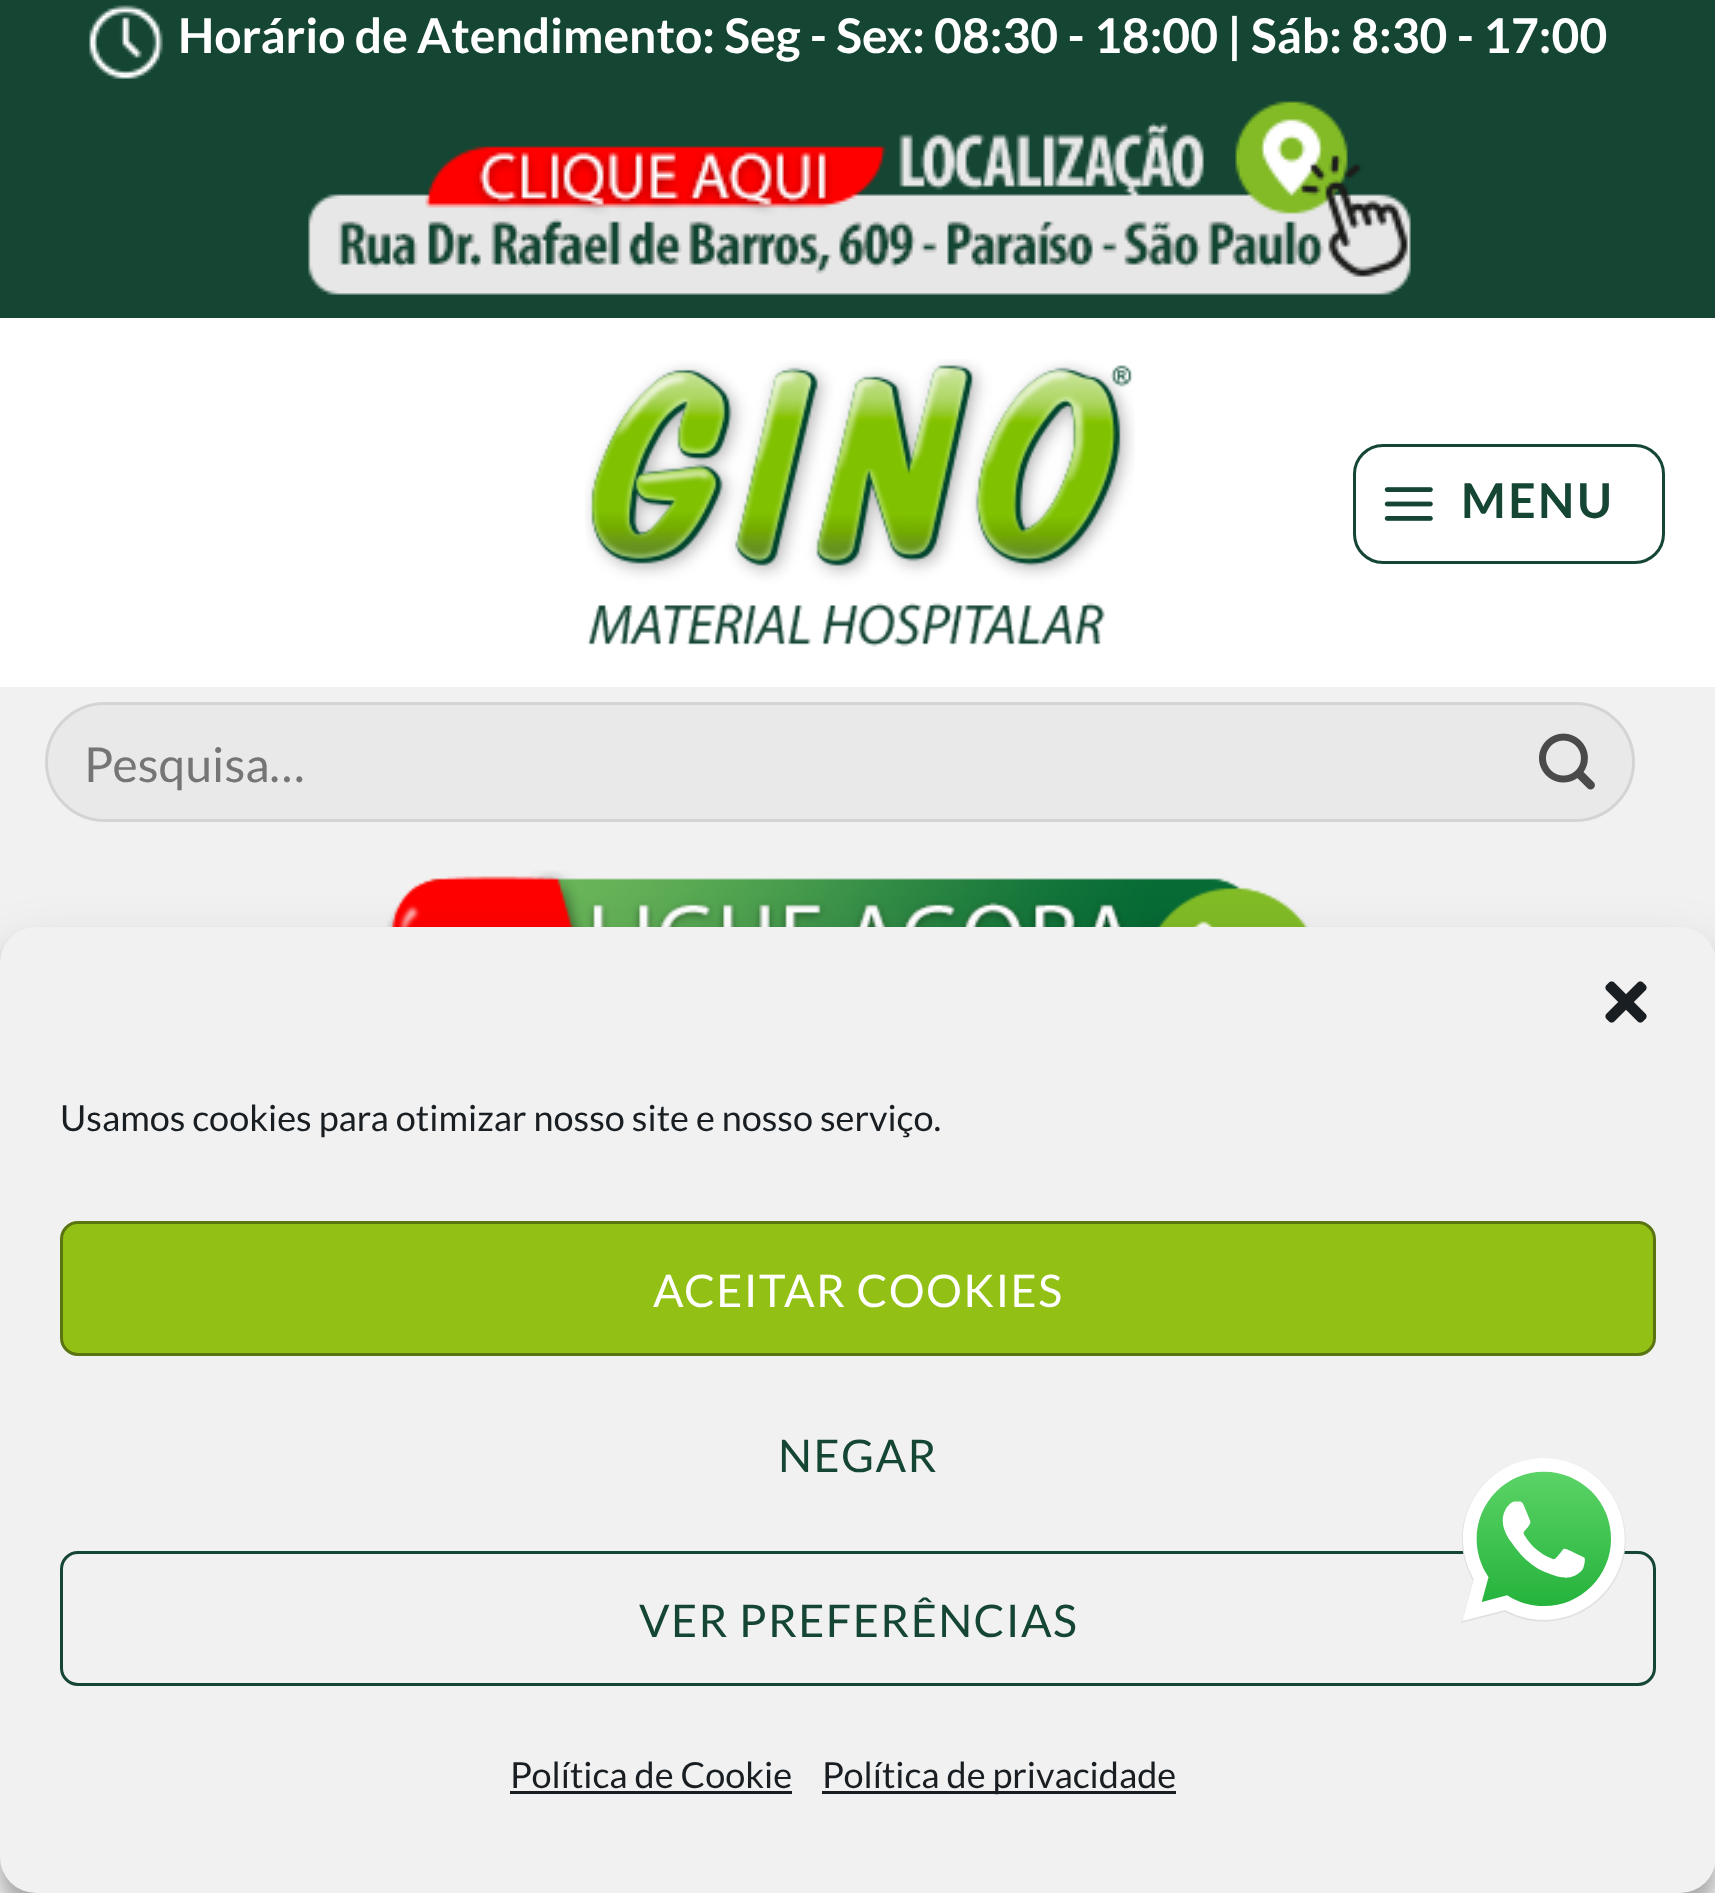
<svg xmlns="http://www.w3.org/2000/svg" width="1715" height="1893">
<rect width="100%" height="100%" fill="#fff"/>
<rect width="1715" height="318" fill="#144633"/>
<image x="89" y="5" width="74" height="74" href="media/1.png"/>
<text x="178" y="53" style="font-family:Lato;font-size:48px;font-weight:bold;fill:#fff">Horário de Atendimento: Seg - Sex: 08:30 - 18:00 | Sáb: 8:30 - 17:00</text>
<image x="308" y="101" width="1103" height="194" href="media/2.png"/>
<image x="585" y="359" width="550" height="288" href="media/3.png"/>
<rect x="1354.5" y="445.5" width="309" height="117" rx="28.5" fill="none" stroke="#144633" stroke-width="3"/>
<image x="1384" y="487" width="49" height="34" href="media/4.png"/>
<text x="1461" y="518" style="font-family:Lato;font-size:48px;font-weight:bold;letter-spacing:2.5px;fill:#144633">MENU</text>
<rect y="687" width="1715" height="276" fill="#f1f1f1"/>
<rect x="45" y="702" width="1590" height="120" rx="60" fill="#e9e9e9"/>
<rect x="46.5" y="703.5" width="1587" height="117" rx="58.5" fill="none" stroke="#00000017" stroke-width="3"/>
<text x="84" y="782" style="font-family:Lato;font-size:48px;fill:#757575">Pesquisa…</text>
<image x="1539" y="733" width="56" height="57" href="media/5.png"/>
<image x="387" y="870" width="921" height="57" href="media/6.png"/>
<rect y="945" width="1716" height="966" rx="36" fill="#0000003b" filter="blur(9px)"/>
<rect y="957" width="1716" height="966" rx="36" fill="#00000030" filter="blur(30px)"/>
<rect x="1506" y="1671" width="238" height="180" rx="6" fill="#808080" filter="blur(7.5px)"/>
<rect y="927" width="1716" height="966" rx="36" fill="#f1f1f1"/>
<image x="1605" y="981" width="42" height="42" href="media/7.png"/>
<text x="60" y="1131" style="font-family:Lato;font-size:36px;fill:#191e23">Usamos cookies para otimizar nosso site e nosso serviço.</text>
<rect x="61.5" y="1222.5" width="1593" height="132" rx="16.5" fill="#92c015" stroke="#5a7412" stroke-width="3"/>
<text x="653" y="1307" style="font-family:Lato;font-size:45px;letter-spacing:1.4px;fill:#fff">ACEITAR COOKIES</text>
<text x="778" y="1472" style="font-family:Lato;font-size:45px;letter-spacing:1.4px;fill:#144633">NEGAR</text>
<rect x="61.5" y="1552.5" width="1593" height="132" rx="16.5" fill="none" stroke="#154633" stroke-width="3"/>
<text x="639" y="1637" style="font-family:Lato;font-size:45px;letter-spacing:1.4px;fill:#144633">VER PREFERÊNCIAS</text>
<text x="510" y="1788" style="font-family:Lato;font-size:36px;fill:#191e23">Política de Cookie</text>
<rect x="510" y="1791" width="282" height="3" fill="#191e23"/>
<rect x="822" y="1791" width="354" height="3" fill="#191e23"/>
<text x="822" y="1788" style="font-family:Lato;font-size:36px;fill:#191e23">Política de privacidade</text>
<image x="1461" y="1458" width="165" height="165" href="media/8.png"/>
</svg>
